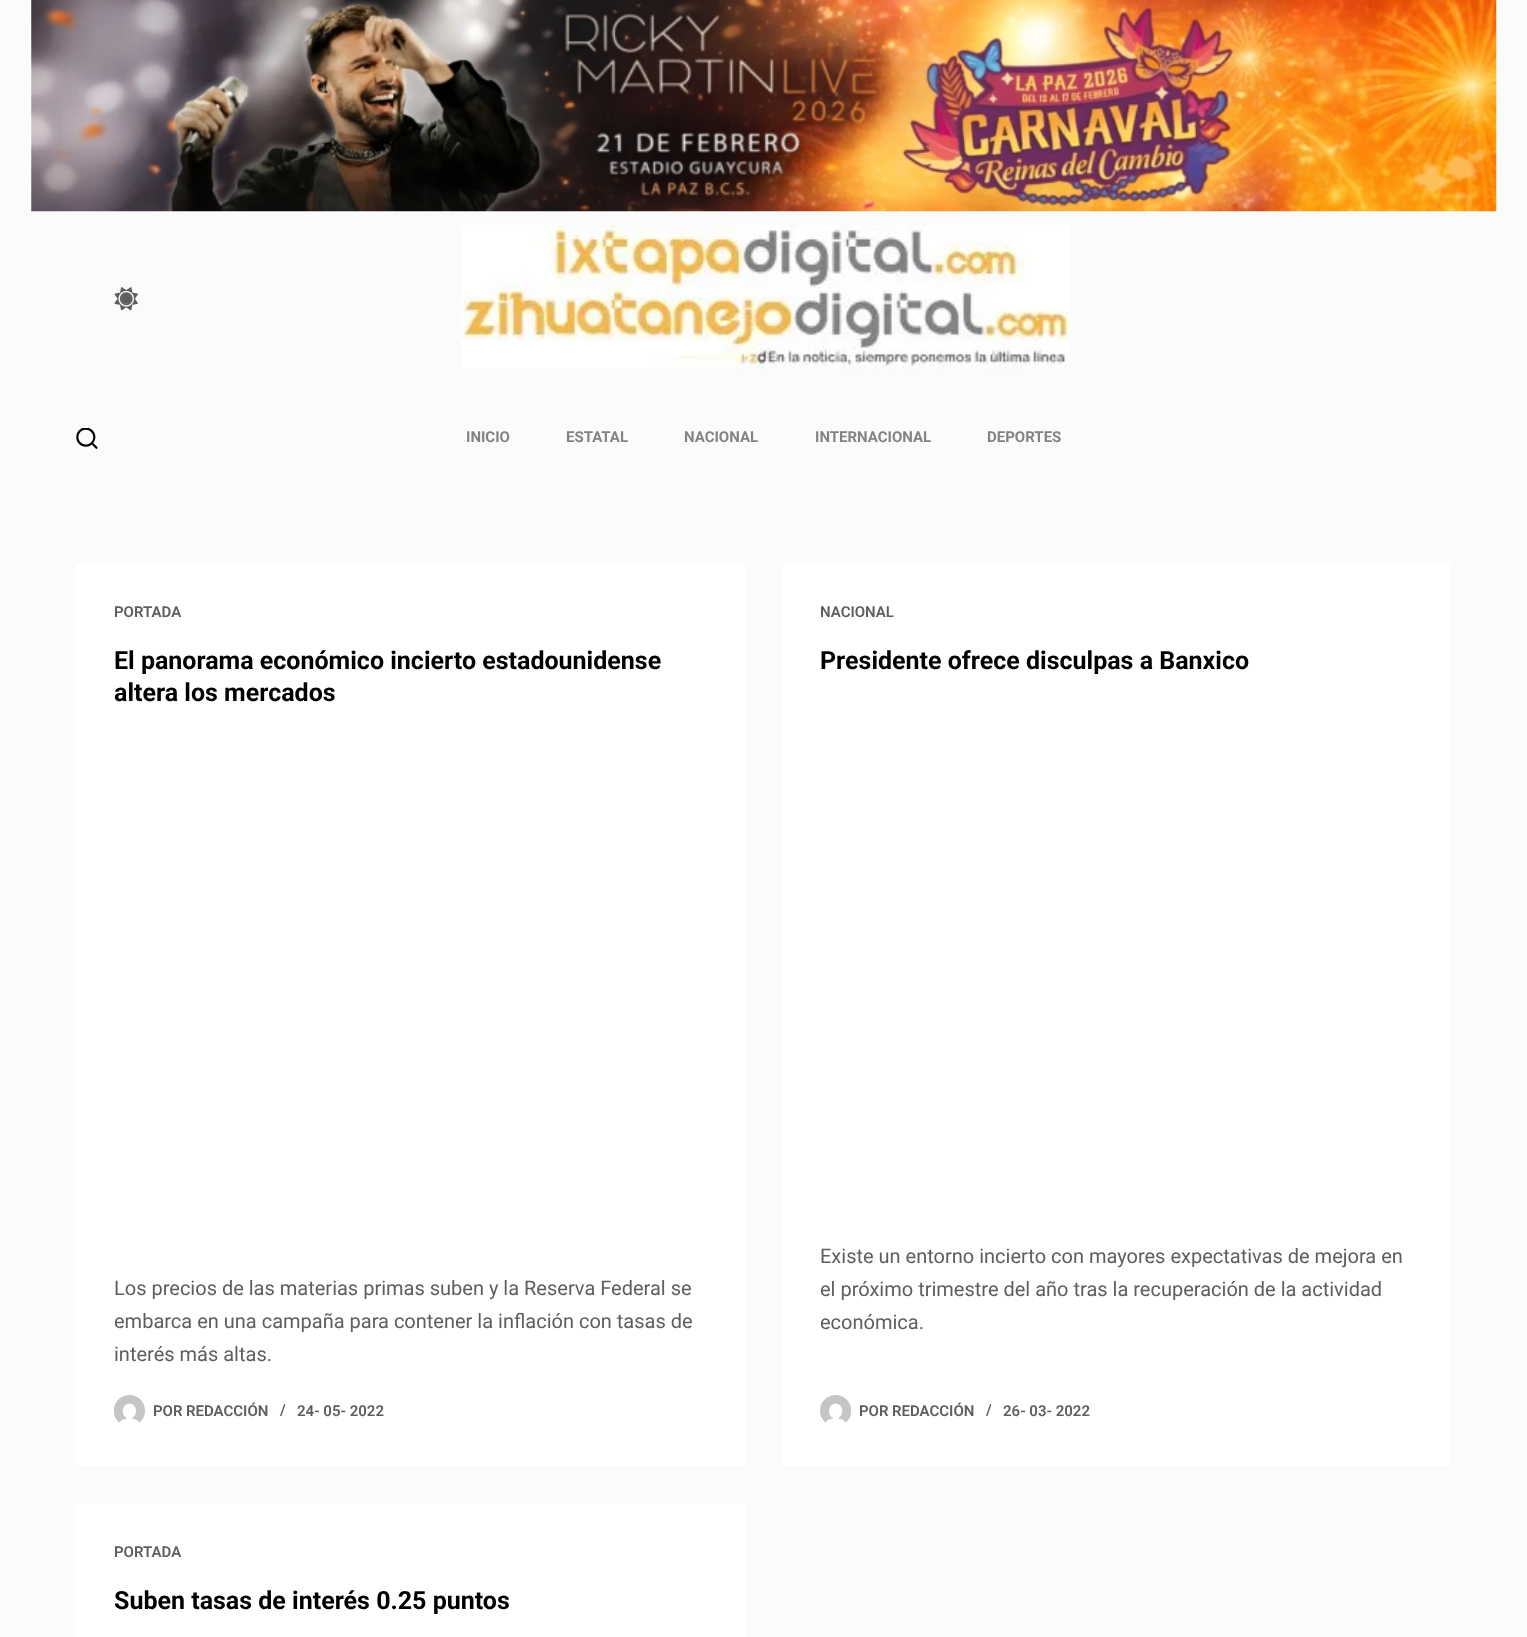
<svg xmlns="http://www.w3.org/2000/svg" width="1527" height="1637">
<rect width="100%" height="100%" fill="#fbfbfc"/>
<image x="31" y="0" width="1466" height="212" href="media/1.png"/>
<image x="114" y="287" width="24" height="24" href="media/2.png"/>
<image x="461" y="225" width="609" height="144" href="media/3.png"/>
<image x="76" y="428" width="22" height="21" href="media/4.png"/>
<text x="466" y="442" style="font-family:Roboto;font-size:15px;font-weight:bold;fill:#838383">INICIO</text>
<text x="566" y="442" style="font-family:Roboto;font-size:15px;font-weight:bold;fill:#838383">ESTATAL</text>
<text x="684" y="442" style="font-family:Roboto;font-size:15px;font-weight:bold;fill:#838383">NACIONAL</text>
<text x="815" y="442" style="font-family:Roboto;font-size:15px;font-weight:bold;fill:#838383">INTERNACIONAL</text>
<text x="987" y="442" style="font-family:Roboto;font-size:15px;font-weight:bold;fill:#838383">DEPORTES</text>
<rect x="76" y="563" width="669" height="903" fill="#fff"/>
<text x="114" y="617" style="font-family:Roboto;font-size:15px;font-weight:600;fill:#5e5e5e">PORTADA</text>
<text x="114" y="669" style="font-family:Roboto;font-size:25px;font-weight:bold;fill:#000">El panorama económico incierto estadounidense</text>
<text x="114" y="701" style="font-family:Roboto;font-size:25px;font-weight:bold;fill:#000">altera los mercados</text>
<text x="114" y="1295" style="font-family:Roboto;font-size:20px;fill:#5e5e5e">Los precios de las materias primas suben y la Reserva Federal se</text>
<text x="114" y="1328" style="font-family:Roboto;font-size:20px;fill:#5e5e5e">embarca en una campaña para contener la inflación con tasas de</text>
<text x="114" y="1361" style="font-family:Roboto;font-size:20px;fill:#5e5e5e">interés más altas.</text>
<image x="114" y="1395" width="31" height="29" href="media/5.png"/>
<text x="153" y="1416" style="font-family:Roboto;font-size:15px;font-weight:600;fill:#5e5e5e">POR</text>
<text x="186" y="1416" style="font-family:Roboto;font-size:15px;font-weight:600;fill:#5e5e5e">REDACCIÓN</text>
<text x="280" y="1415" style="font-family:Roboto;font-size:15px;font-weight:600;fill:#5e5e5e">/</text>
<text x="297" y="1416" style="font-family:Roboto;font-size:15px;font-weight:600;fill:#5e5e5e">24- 05- 2022</text>
<rect x="783" y="563" width="668" height="903" fill="#fff"/>
<text x="820" y="617" style="font-family:Roboto;font-size:15px;font-weight:600;fill:#5e5e5e">NACIONAL</text>
<text x="820" y="669" style="font-family:Roboto;font-size:25px;font-weight:bold;fill:#000">Presidente ofrece disculpas a Banxico</text>
<text x="820" y="1263" style="font-family:Roboto;font-size:20px;fill:#5e5e5e">Existe un entorno incierto con mayores expectativas de mejora en</text>
<text x="820" y="1296" style="font-family:Roboto;font-size:20px;fill:#5e5e5e">el próximo trimestre del año tras la recuperación de la actividad</text>
<text x="820" y="1329" style="font-family:Roboto;font-size:20px;fill:#5e5e5e">económica.</text>
<image x="820" y="1395" width="31" height="28" href="media/6.png"/>
<text x="859" y="1416" style="font-family:Roboto;font-size:15px;font-weight:600;fill:#5e5e5e">POR</text>
<text x="892" y="1416" style="font-family:Roboto;font-size:15px;font-weight:600;fill:#5e5e5e">REDACCIÓN</text>
<text x="986" y="1415" style="font-family:Roboto;font-size:15px;font-weight:600;fill:#5e5e5e">/</text>
<text x="1003" y="1416" style="font-family:Roboto;font-size:15px;font-weight:600;fill:#5e5e5e">26- 03- 2022</text>
<rect x="76" y="1504" width="669" height="133" fill="#fff"/>
<text x="114" y="1557" style="font-family:Roboto;font-size:15px;font-weight:600;fill:#5e5e5e">PORTADA</text>
<text x="114" y="1609" style="font-family:Roboto;font-size:25px;font-weight:bold;fill:#000">Suben tasas de interés 0.25 puntos</text>
</svg>
